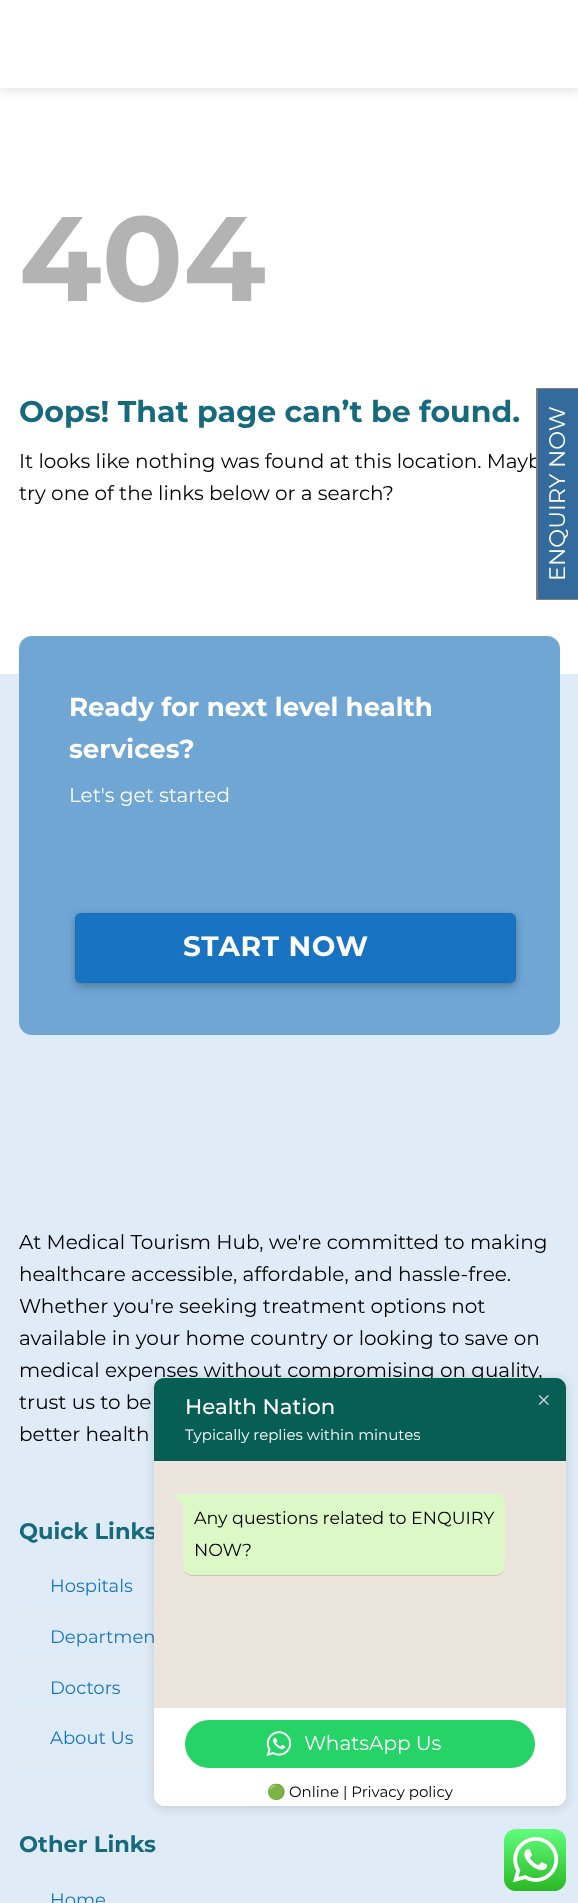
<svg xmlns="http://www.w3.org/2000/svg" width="578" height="1903">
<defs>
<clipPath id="clip1"><path d="M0 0h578v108h-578zm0 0h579v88h-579z" clip-rule="evenodd"/></clipPath>
</defs>
<rect width="100%" height="100%" fill="#fff"/>
<g clip-path="url(#clip1)">
<rect x="1" y="1" width="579" height="88" fill="#00000026" filter="blur(6px)"/>
</g>
<rect y="87" width="578" height="1" fill="#ffffffe6"/>
<text x="19" y="301" style="font-family:Montserrat;font-size:120px;font-weight:bold;fill:#b3b3b3">404</text>
<text x="19" y="422" style="font-family:Montserrat;font-size:30px;font-weight:bold;fill:#176a7d">Oops! That page can’t be found.</text>
<text x="19" y="468" style="font-family:Montserrat;font-size:20px;fill:#000">It looks like nothing was found at this location. Mayb</text>
<text x="19" y="500" style="font-family:Montserrat;font-size:20px;fill:#000">try one of the links below or a search?</text>
<rect y="674" width="578" height="1229" fill="#dfecf7"/>
<rect x="19" y="636" width="541" height="399" rx="13" fill="#6fa6d4"/>
<text x="69" y="716" style="font-family:Montserrat;font-size:26px;font-weight:bold;fill:#fff">Ready for next level health</text>
<text x="69" y="758" style="font-family:Montserrat;font-size:26px;font-weight:bold;fill:#fff">services?</text>
<text x="69" y="802" style="font-family:Montserrat;font-size:20px;fill:#fff">Let's get started</text>
<rect x="75" y="916" width="441" height="70" rx="6" fill="#0000003b" filter="blur(4px)"/>
<rect x="80" y="921" width="431" height="60" rx="1" fill="#00000029" filter="blur(4px)"/>
<rect x="75" y="913" width="441" height="70" rx="6" fill="#1874c3"/>
<rect x="75.5" y="913.5" width="440" height="69" fill="none" stroke="#0000000d"/>
<text x="183" y="956" style="font-family:Montserrat;font-size:28px;font-weight:bold;letter-spacing:0.75px;fill:#fff">START NOW</text>
<text x="19" y="1249" style="font-family:Montserrat;font-size:20px;fill:#000">At Medical Tourism Hub, we're committed to making</text>
<text x="19" y="1281" style="font-family:Montserrat;font-size:20px;fill:#000">healthcare accessible, affordable, and hassle-free.</text>
<text x="19" y="1313" style="font-family:Montserrat;font-size:20px;fill:#000">Whether you're seeking treatment options not</text>
<text x="19" y="1345" style="font-family:Montserrat;font-size:20px;fill:#000">available in your home country or looking to save on</text>
<text x="19" y="1377" style="font-family:Montserrat;font-size:20px;fill:#000">medical expenses without compromising on quality,</text>
<text x="19" y="1409" style="font-family:Montserrat;font-size:20px;fill:#000">trust us to be</text>
<text x="19" y="1441" style="font-family:Montserrat;font-size:20px;fill:#000">better health</text>
<text x="19" y="1539" style="font-family:Montserrat;font-size:22.5px;font-weight:bold;fill:#176a7d">Quick Links</text>
<rect x="19" y="1610" width="135" height="1" fill="#ececec"/>
<text x="50" y="1592" style="font-family:Montserrat;font-size:18px;fill:#1874c3">Hospitals</text>
<rect x="19" y="1661" width="135" height="1" fill="#ececec"/>
<text x="50" y="1643" style="font-family:Montserrat;font-size:18px;fill:#1874c3">Departmen</text>
<rect x="19" y="1711" width="135" height="1" fill="#ececec"/>
<text x="50" y="1694" style="font-family:Montserrat;font-size:18px;fill:#1874c3">Doctors</text>
<rect x="19" y="1763" width="135" height="1" fill="#ececec"/>
<text x="50" y="1744" style="font-family:Montserrat;font-size:18px;fill:#1874c3">About Us</text>
<text x="19" y="1852" style="font-family:Montserrat;font-size:22.5px;font-weight:bold;fill:#176a7d">Other Links</text>
<text x="50" y="1906" style="font-family:Montserrat;font-size:18px;fill:#1874c3">Home</text>
<rect x="538" y="389" width="40" height="210" fill="#326b9c"/>
<rect x="536" y="388" width="2" height="212" fill="#7f7f7f"/>
<rect x="536" y="388" width="42" height="1" fill="#7f7f7f"/>
<rect x="536" y="599" width="42" height="1" fill="#7f7f7f"/>
<text x="565" y="581" transform="rotate(-90 565 581)" style="font-family:Montserrat;font-size:22.5px;fill:#fff">ENQUIRY NOW</text>
<rect x="154" y="1379" width="412" height="429" rx="10" fill="#00000024" filter="blur(5.5px)"/>
<path d="M164 1378h392c5.5 0 10 4.5 10 10v75h-412v-75c0-5.5 4.5-10 10-10z" fill="#075e54"/>
<text x="185" y="1414" style="font-family:Montserrat;font-size:21.25px;font-weight:500;fill:#fff">Health Nation</text>
<text x="185" y="1440" style="font-family:Montserrat;font-size:15px;fill:#fff">Typically replies within minutes</text>
<rect x="154" y="1461" width="412" height="247" fill="#ece5dd"/>
<rect x="183" y="1495" width="322" height="81" rx="9" fill="#00000024" filter="blur(0.5px)"/>
<path d="M183 1494h313c5 0 9 4 9 9v63c0 5-4 9-9 9h-304c-5 0-9-4-9-9z" fill="#dcf8c6"/>
<path d="M173 1494h10.5v11l-10.5-10.5z" fill="#dcf8c6"/>
<text x="194" y="1524" style="font-family:Montserrat;font-size:17.5px;fill:#000">Any questions related to ENQUIRY</text>
<text x="194" y="1556" style="font-family:Montserrat;font-size:17.5px;fill:#000">NOW?</text>
<rect x="154" y="1708" width="412" height="70" fill="#fff"/>
<rect x="185" y="1720" width="350" height="48" rx="24" fill="#25d366"/>
<image x="266" y="1731" width="25" height="25" href="media/1.png"/>
<text x="304" y="1750" style="font-family:Montserrat;font-size:20px;fill:#fff">WhatsApp Us</text>
<path d="M154 1778h412v18c0 5.5-4.5 10-10 10h-392c-5.5 0-10-4.5-10-10z" fill="#fff"/>
<text x="267" y="1797" style="font-family:Noto Color Emoji;font-size:15px;fill:#000">🟢</text>
<text x="289" y="1797" style="font-family:Montserrat;font-size:15px;fill:#000">Online | Privacy policy</text>
<image x="538" y="1395" width="11" height="10" href="media/2.png"/>
<image x="504" y="1829" width="62" height="62" href="media/3.png"/>
</svg>
